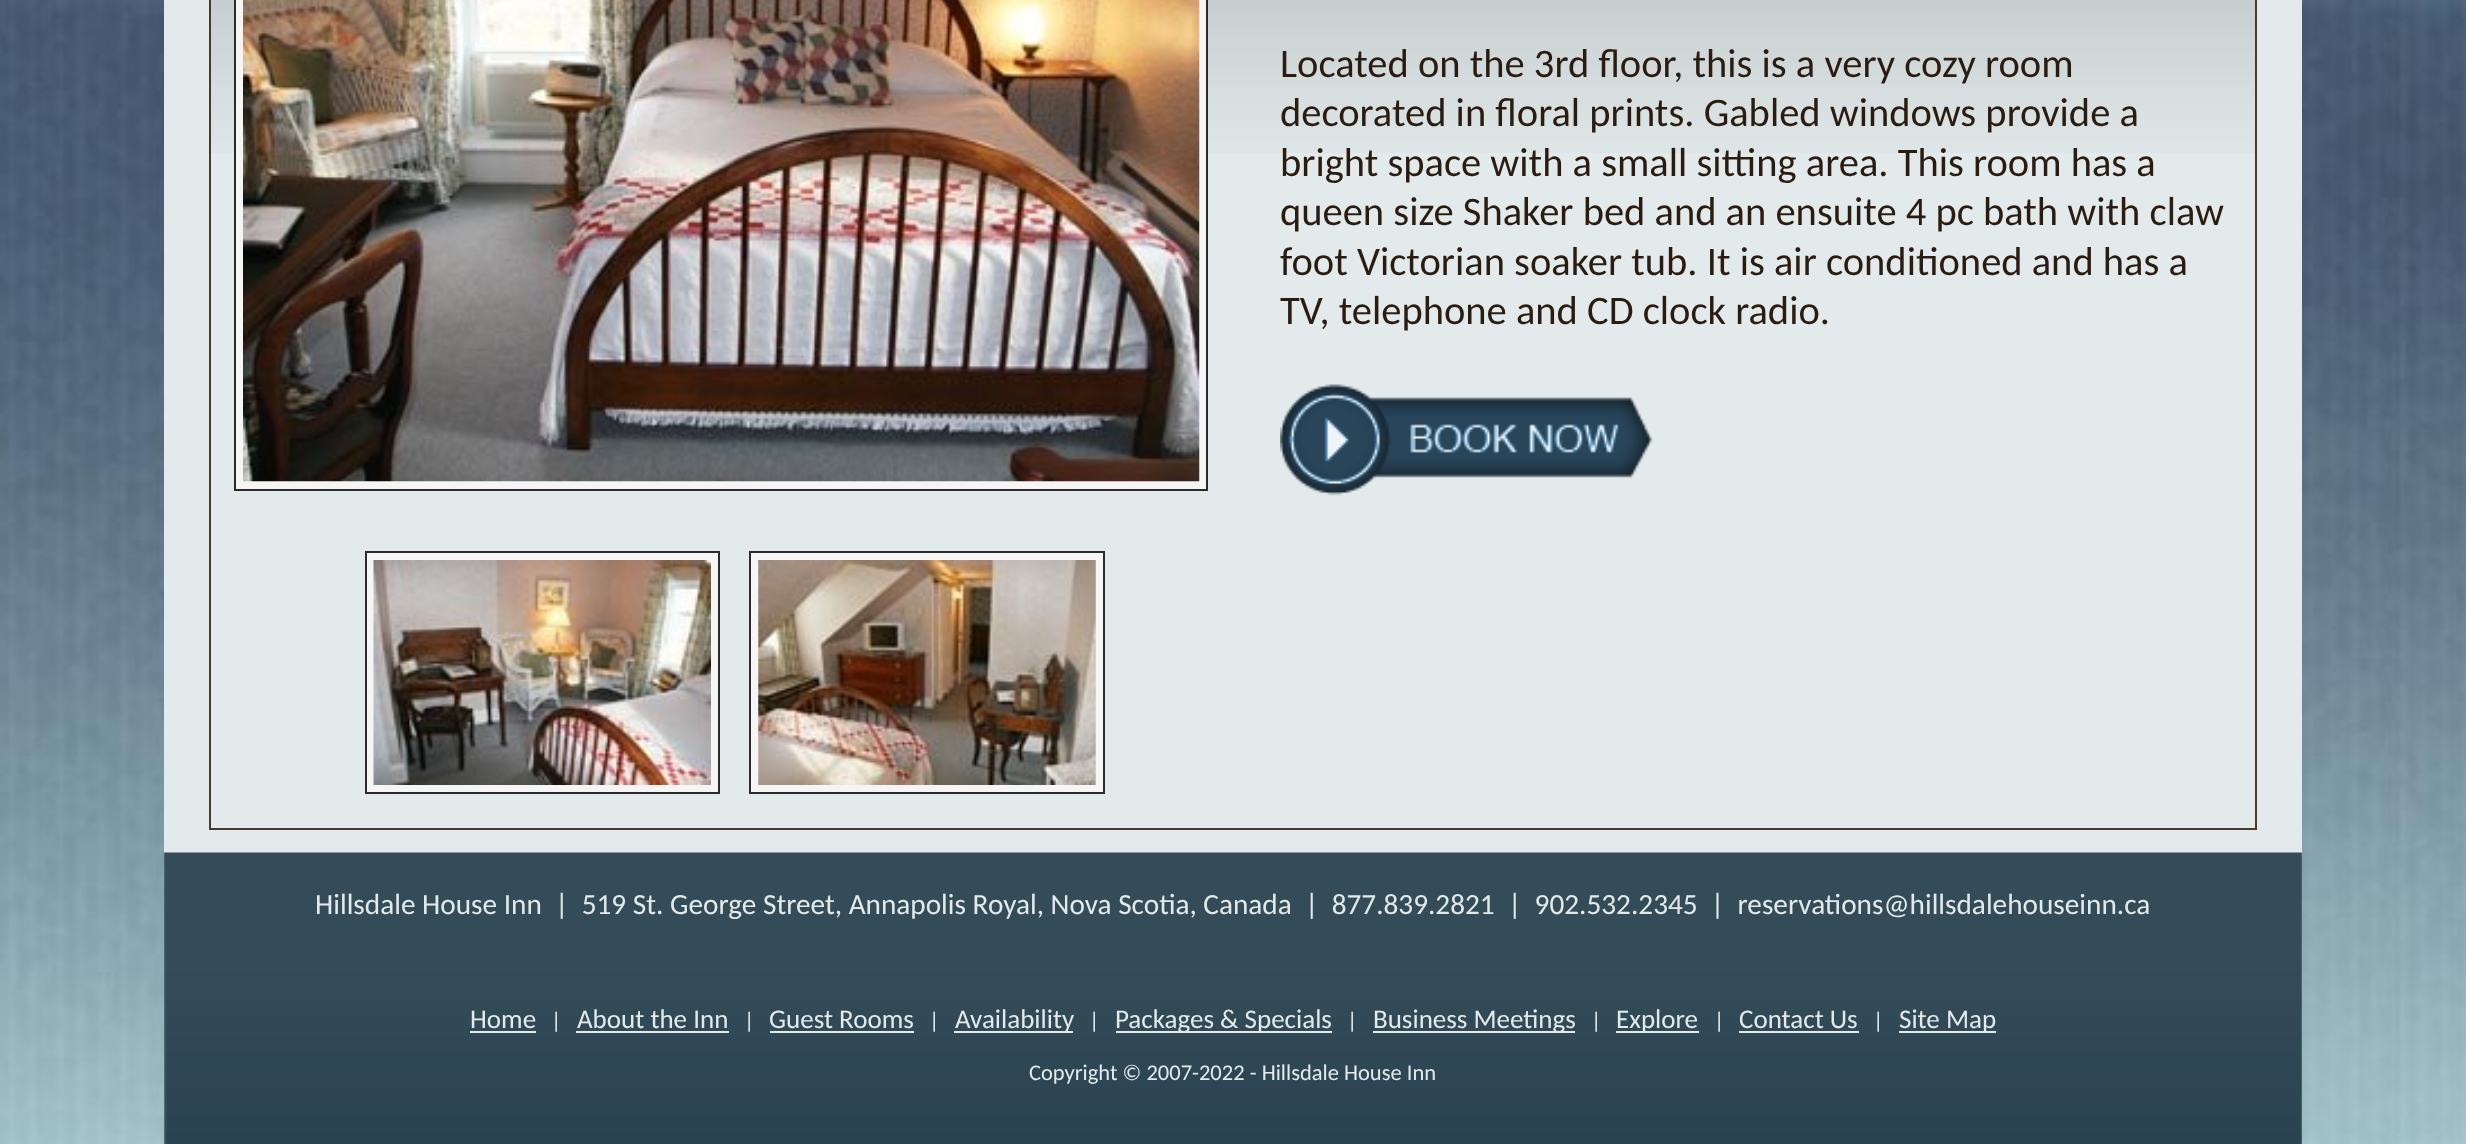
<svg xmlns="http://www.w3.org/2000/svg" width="2466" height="1144">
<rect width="100%" height="100%" fill="#fff"/>
<image x="0" y="0" width="2466" height="1144" href="media/1.png"/>
<rect x="164" width="2138" height="853" fill="#e3eaeb"/>
<image x="211" y="0" width="2044" height="153" href="media/2.png"/>
<rect x="210" y="-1" width="2046" height="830" fill="none" stroke="#4b392e" stroke-width="2"/>
<rect x="235" y="-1" width="972" height="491" fill="#f5f5f5" stroke="#2b2b2b" stroke-width="2"/>
<image x="243" y="0" width="957" height="482" href="media/3.png"/>
<rect x="366" y="552" width="353" height="241" fill="#f5f5f5" stroke="#2b2b2b" stroke-width="2"/>
<rect x="750" y="552" width="354" height="241" fill="#f5f5f5" stroke="#2b2b2b" stroke-width="2"/>
<image x="373" y="560" width="338" height="225" href="media/4.png"/>
<image x="758" y="560" width="338" height="225" href="media/5.png"/>
<text x="1280" y="77" style="font-family:Carlito;font-size:40.5px;fill:#2b1c12">Located on the 3rd floor, this is a very cozy room</text>
<text x="1280" y="126" style="font-family:Carlito;font-size:40.5px;fill:#2b1c12">decorated in floral prints. Gabled windows provide a</text>
<text x="1280" y="176" style="font-family:Carlito;font-size:40.5px;fill:#2b1c12">bright space with a small sitting area. This room has a</text>
<text x="1280" y="225" style="font-family:Carlito;font-size:40.5px;fill:#2b1c12">queen size Shaker bed and an ensuite 4 pc bath with claw</text>
<text x="1280" y="275" style="font-family:Carlito;font-size:40.5px;fill:#2b1c12">foot Victorian soaker tub. It is air conditioned and has a</text>
<text x="1280" y="324" style="font-family:Carlito;font-size:40.5px;fill:#2b1c12">TV, telephone and CD clock radio.</text>
<image x="1280" y="384" width="373" height="112" href="media/6.png"/>
<image x="164" y="852" width="2138" height="292" href="media/7.png"/>
<text x="315" y="914" style="font-family:Carlito;font-size:29.25px;fill:#e3eaeb" xml:space="preserve">Hillsdale House Inn  |  519 St. George Street, Annapolis Royal, Nova Scotia, Canada  |  877.839.2821  |  902.532.2345  |  reservations@hillsdalehouseinn.ca</text>
<text x="470" y="1028" style="font-family:Carlito;font-size:27px;fill:#e3eaeb">Home</text>
<rect x="470" y="1031" width="66" height="2" fill="#e3eaeb"/>
<text x="551" y="1028" style="font-family:Carlito;font-size:22.5px;fill:#e3eaeb">|</text>
<text x="577" y="1028" style="font-family:Carlito;font-size:27px;fill:#e3eaeb">About the Inn</text>
<rect x="576" y="1031" width="153" height="2" fill="#e3eaeb"/>
<text x="744" y="1028" style="font-family:Carlito;font-size:22.5px;fill:#e3eaeb">|</text>
<text x="769" y="1028" style="font-family:Carlito;font-size:27px;fill:#e3eaeb">Guest Rooms</text>
<rect x="770" y="1031" width="144" height="2" fill="#e3eaeb"/>
<text x="929" y="1028" style="font-family:Carlito;font-size:22.5px;fill:#e3eaeb">|</text>
<rect x="954" y="1031" width="119" height="2" fill="#e3eaeb"/>
<text x="955" y="1028" style="font-family:Carlito;font-size:27px;fill:#e3eaeb">Availability</text>
<text x="1089" y="1028" style="font-family:Carlito;font-size:22.5px;fill:#e3eaeb">|</text>
<rect x="1116" y="1031" width="216" height="2" fill="#e3eaeb"/>
<text x="1115" y="1028" style="font-family:Carlito;font-size:27px;fill:#e3eaeb">Packages &amp; Specials</text>
<text x="1347" y="1028" style="font-family:Carlito;font-size:22.5px;fill:#e3eaeb">|</text>
<rect x="1373" y="1031" width="202" height="2" fill="#e3eaeb"/>
<text x="1373" y="1028" style="font-family:Carlito;font-size:27px;fill:#e3eaeb">Business Meetings</text>
<text x="1591" y="1028" style="font-family:Carlito;font-size:22.5px;fill:#e3eaeb">|</text>
<rect x="1616" y="1031" width="83" height="2" fill="#e3eaeb"/>
<text x="1616" y="1028" style="font-family:Carlito;font-size:27px;fill:#e3eaeb">Explore</text>
<text x="1714" y="1028" style="font-family:Carlito;font-size:22.5px;fill:#e3eaeb">|</text>
<text x="1739" y="1028" style="font-family:Carlito;font-size:27px;fill:#e3eaeb">Contact Us</text>
<rect x="1739" y="1031" width="120" height="2" fill="#e3eaeb"/>
<text x="1873" y="1028" style="font-family:Carlito;font-size:22.5px;fill:#e3eaeb">|</text>
<rect x="1899" y="1031" width="97" height="2" fill="#e3eaeb"/>
<text x="1899" y="1028" style="font-family:Carlito;font-size:27px;fill:#e3eaeb">Site Map</text>
<text x="1029" y="1080" style="font-family:Carlito;font-size:22.5px;fill:#e3eaeb">Copyright © 2007-2022 - Hillsdale House Inn</text>
</svg>
